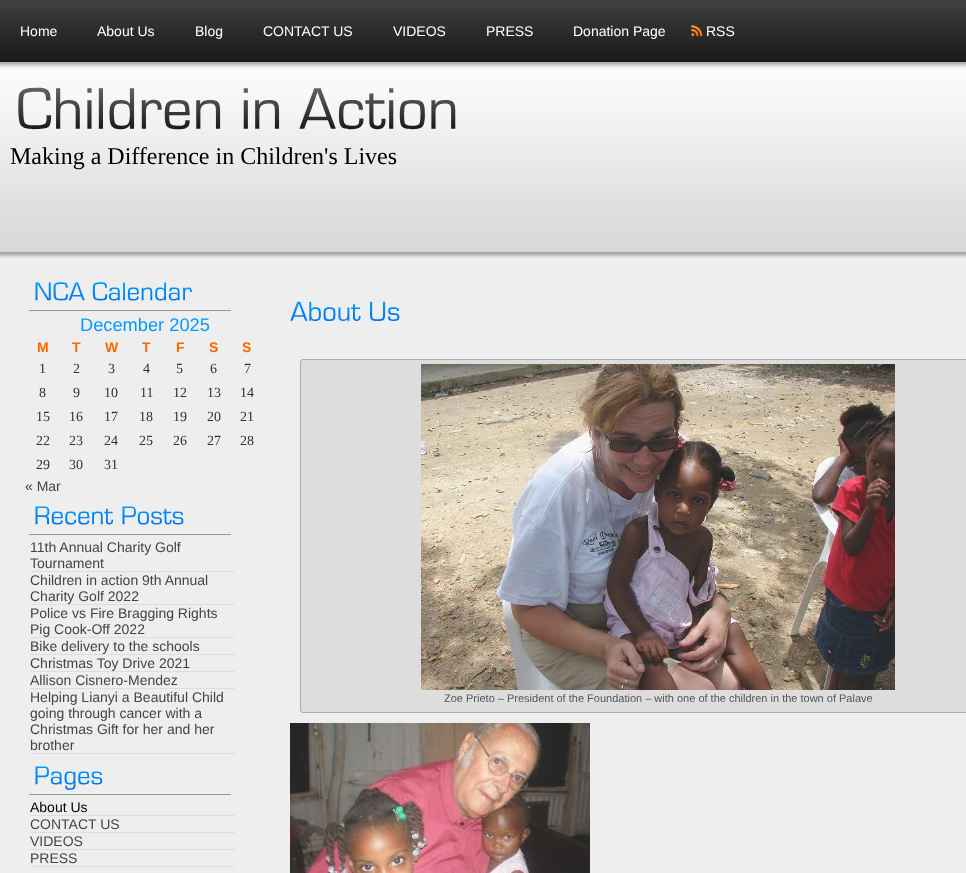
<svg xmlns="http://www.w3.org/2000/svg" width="966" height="873">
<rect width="100%" height="100%" fill="#eee"/>
<image x="0" y="62" width="966" height="196" href="media/1.png"/>
<rect width="966" height="9" fill="#3e3e3e"/>
<image x="0" y="9" width="966" height="53" href="media/2.png"/>
<text x="20" y="36" style="font-family:Liberation Sans;font-size:14px;fill:#fff">Home</text>
<text x="97" y="36" style="font-family:Liberation Sans;font-size:14px;fill:#fff">About Us</text>
<text x="195" y="36" style="font-family:Liberation Sans;font-size:14px;fill:#fff">Blog</text>
<text x="263" y="36" style="font-family:Liberation Sans;font-size:14px;fill:#fff">CONTACT US</text>
<text x="393" y="36" style="font-family:Liberation Sans;font-size:14px;fill:#fff">VIDEOS</text>
<text x="486" y="36" style="font-family:Liberation Sans;font-size:14px;fill:#fff">PRESS</text>
<text x="573" y="36" style="font-family:Liberation Sans;font-size:14px;fill:#fff">Donation Page</text>
<image x="691" y="25" width="12" height="12" href="media/3.png"/>
<text x="706" y="36" style="font-family:Liberation Sans;font-size:14px;fill:#fff">RSS</text>
<image x="18" y="87" width="203" height="43" href="media/4.png"/>
<image x="243" y="88" width="37" height="41" href="media/5.png"/>
<image x="299" y="88" width="157" height="42" href="media/6.png"/>
<text x="10" y="164" style="font-family:Liberation Serif;font-size:24px;fill:#000">Making a Difference in Children's Lives</text>
<rect x="29" y="310" width="202" height="1" fill="#999"/>
<image x="35" y="282" width="50" height="19" href="media/7.png"/>
<image x="92" y="282" width="100" height="19" href="media/8.png"/>
<text x="80" y="331" style="font-family:Liberation Sans;font-size:18.25px;fill:#09f">December 2025</text>
<text x="37" y="352" style="font-family:Liberation Sans;font-size:14px;font-weight:bold;fill:#f60">M</text>
<text x="72" y="352" style="font-family:Liberation Sans;font-size:14px;font-weight:bold;fill:#f60">T</text>
<text x="105" y="352" style="font-family:Liberation Sans;font-size:14px;font-weight:bold;fill:#f60">W</text>
<text x="142" y="352" style="font-family:Liberation Sans;font-size:14px;font-weight:bold;fill:#f60">T</text>
<text x="176" y="352" style="font-family:Liberation Sans;font-size:14px;font-weight:bold;fill:#f60">F</text>
<text x="209" y="352" style="font-family:Liberation Sans;font-size:14px;font-weight:bold;fill:#f60">S</text>
<text x="242" y="352" style="font-family:Liberation Sans;font-size:14px;font-weight:bold;fill:#f60">S</text>
<text x="39" y="373" style="font-family:Liberation Serif;font-size:14px;fill:#333">1</text>
<text x="73" y="373" style="font-family:Liberation Serif;font-size:14px;fill:#333">2</text>
<text x="108" y="373" style="font-family:Liberation Serif;font-size:14px;fill:#333">3</text>
<text x="143" y="373" style="font-family:Liberation Serif;font-size:14px;fill:#333">4</text>
<text x="176" y="373" style="font-family:Liberation Serif;font-size:14px;fill:#333">5</text>
<text x="210" y="373" style="font-family:Liberation Serif;font-size:14px;fill:#333">6</text>
<text x="244" y="373" style="font-family:Liberation Serif;font-size:14px;fill:#333">7</text>
<text x="39" y="397" style="font-family:Liberation Serif;font-size:14px;fill:#333">8</text>
<text x="73" y="397" style="font-family:Liberation Serif;font-size:14px;fill:#333">9</text>
<text x="104" y="397" style="font-family:Liberation Serif;font-size:14px;fill:#333">10</text>
<text x="140" y="397" style="font-family:Liberation Serif;font-size:14px;fill:#333">11</text>
<text x="173" y="397" style="font-family:Liberation Serif;font-size:14px;fill:#333">12</text>
<text x="207" y="397" style="font-family:Liberation Serif;font-size:14px;fill:#333">13</text>
<text x="240" y="397" style="font-family:Liberation Serif;font-size:14px;fill:#333">14</text>
<text x="36" y="421" style="font-family:Liberation Serif;font-size:14px;fill:#333">15</text>
<text x="69" y="421" style="font-family:Liberation Serif;font-size:14px;fill:#333">16</text>
<text x="104" y="421" style="font-family:Liberation Serif;font-size:14px;fill:#333">17</text>
<text x="139" y="421" style="font-family:Liberation Serif;font-size:14px;fill:#333">18</text>
<text x="173" y="421" style="font-family:Liberation Serif;font-size:14px;fill:#333">19</text>
<text x="207" y="421" style="font-family:Liberation Serif;font-size:14px;fill:#333">20</text>
<text x="240" y="421" style="font-family:Liberation Serif;font-size:14px;fill:#333">21</text>
<text x="36" y="445" style="font-family:Liberation Serif;font-size:14px;fill:#333">22</text>
<text x="69" y="445" style="font-family:Liberation Serif;font-size:14px;fill:#333">23</text>
<text x="104" y="445" style="font-family:Liberation Serif;font-size:14px;fill:#333">24</text>
<text x="139" y="445" style="font-family:Liberation Serif;font-size:14px;fill:#333">25</text>
<text x="173" y="445" style="font-family:Liberation Serif;font-size:14px;fill:#333">26</text>
<text x="207" y="445" style="font-family:Liberation Serif;font-size:14px;fill:#333">27</text>
<text x="240" y="445" style="font-family:Liberation Serif;font-size:14px;fill:#333">28</text>
<text x="36" y="469" style="font-family:Liberation Serif;font-size:14px;fill:#333">29</text>
<text x="69" y="469" style="font-family:Liberation Serif;font-size:14px;fill:#333">30</text>
<text x="104" y="469" style="font-family:Liberation Serif;font-size:14px;fill:#333">31</text>
<text x="25" y="491" style="font-family:Liberation Sans;font-size:14px;fill:#444">« Mar</text>
<rect x="29" y="534" width="202" height="1" fill="#999"/>
<image x="35" y="506" width="79" height="19" href="media/9.png"/>
<image x="122" y="506" width="62" height="19" href="media/10.png"/>
<rect x="30" y="571" width="205" height="1" fill="#ddd"/>
<text x="30" y="552" style="font-family:Liberation Sans;font-size:14px;fill:#444">11th Annual Charity Golf</text>
<text x="30" y="568" style="font-family:Liberation Sans;font-size:14px;fill:#444">Tournament</text>
<rect x="30" y="604" width="205" height="1" fill="#ddd"/>
<text x="30" y="585" style="font-family:Liberation Sans;font-size:14px;fill:#444">Children in action 9th Annual</text>
<text x="30" y="601" style="font-family:Liberation Sans;font-size:14px;fill:#444">Charity Golf 2022</text>
<rect x="30" y="637" width="205" height="1" fill="#ddd"/>
<text x="30" y="618" style="font-family:Liberation Sans;font-size:14px;fill:#444">Police vs Fire Bragging Rights</text>
<text x="30" y="634" style="font-family:Liberation Sans;font-size:14px;fill:#444">Pig Cook-Off 2022</text>
<rect x="30" y="654" width="205" height="1" fill="#ddd"/>
<text x="30" y="651" style="font-family:Liberation Sans;font-size:14px;fill:#444">Bike delivery to the schools</text>
<rect x="30" y="671" width="205" height="1" fill="#ddd"/>
<text x="30" y="668" style="font-family:Liberation Sans;font-size:14px;fill:#444">Christmas Toy Drive 2021</text>
<rect x="30" y="688" width="205" height="1" fill="#ddd"/>
<text x="30" y="685" style="font-family:Liberation Sans;font-size:14px;fill:#444">Allison Cisnero-Mendez</text>
<rect x="30" y="753" width="205" height="1" fill="#ddd"/>
<text x="30" y="702" style="font-family:Liberation Sans;font-size:14px;fill:#444">Helping Lianyi a Beautiful Child</text>
<text x="30" y="718" style="font-family:Liberation Sans;font-size:14px;fill:#444">going through cancer with a</text>
<text x="30" y="734" style="font-family:Liberation Sans;font-size:14px;fill:#444">Christmas Gift for her and her</text>
<text x="30" y="750" style="font-family:Liberation Sans;font-size:14px;fill:#444">brother</text>
<rect x="29" y="794" width="202" height="1" fill="#999"/>
<image x="35" y="766" width="68" height="24" href="media/11.png"/>
<rect x="30" y="815" width="205" height="1" fill="#ddd"/>
<text x="30" y="812" style="font-family:Liberation Sans;font-size:14px;fill:#000">About Us</text>
<rect x="30" y="832" width="205" height="1" fill="#ddd"/>
<text x="30" y="829" style="font-family:Liberation Sans;font-size:14px;fill:#444">CONTACT US</text>
<rect x="30" y="849" width="205" height="1" fill="#ddd"/>
<text x="30" y="846" style="font-family:Liberation Sans;font-size:14px;fill:#444">VIDEOS</text>
<rect x="30" y="866" width="205" height="1" fill="#ddd"/>
<text x="30" y="863" style="font-family:Liberation Sans;font-size:14px;fill:#444">PRESS</text>
<image x="290" y="301" width="71" height="20" href="media/12.png"/>
<image x="370" y="301" width="30" height="20" href="media/13.png"/>
<rect x="300.5" y="359.5" width="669" height="353" rx="2.5" fill="#ddd" stroke="#aaa"/>
<image x="421" y="364" width="474" height="326" href="media/14.png"/>
<text x="444" y="702" style="font-family:Liberation Sans;font-size:11px;fill:#555">Zoe Prieto – President of the Foundation – with one of the children in the town of Palave</text>
<image x="290" y="723" width="300" height="150" href="media/15.png"/>
</svg>
